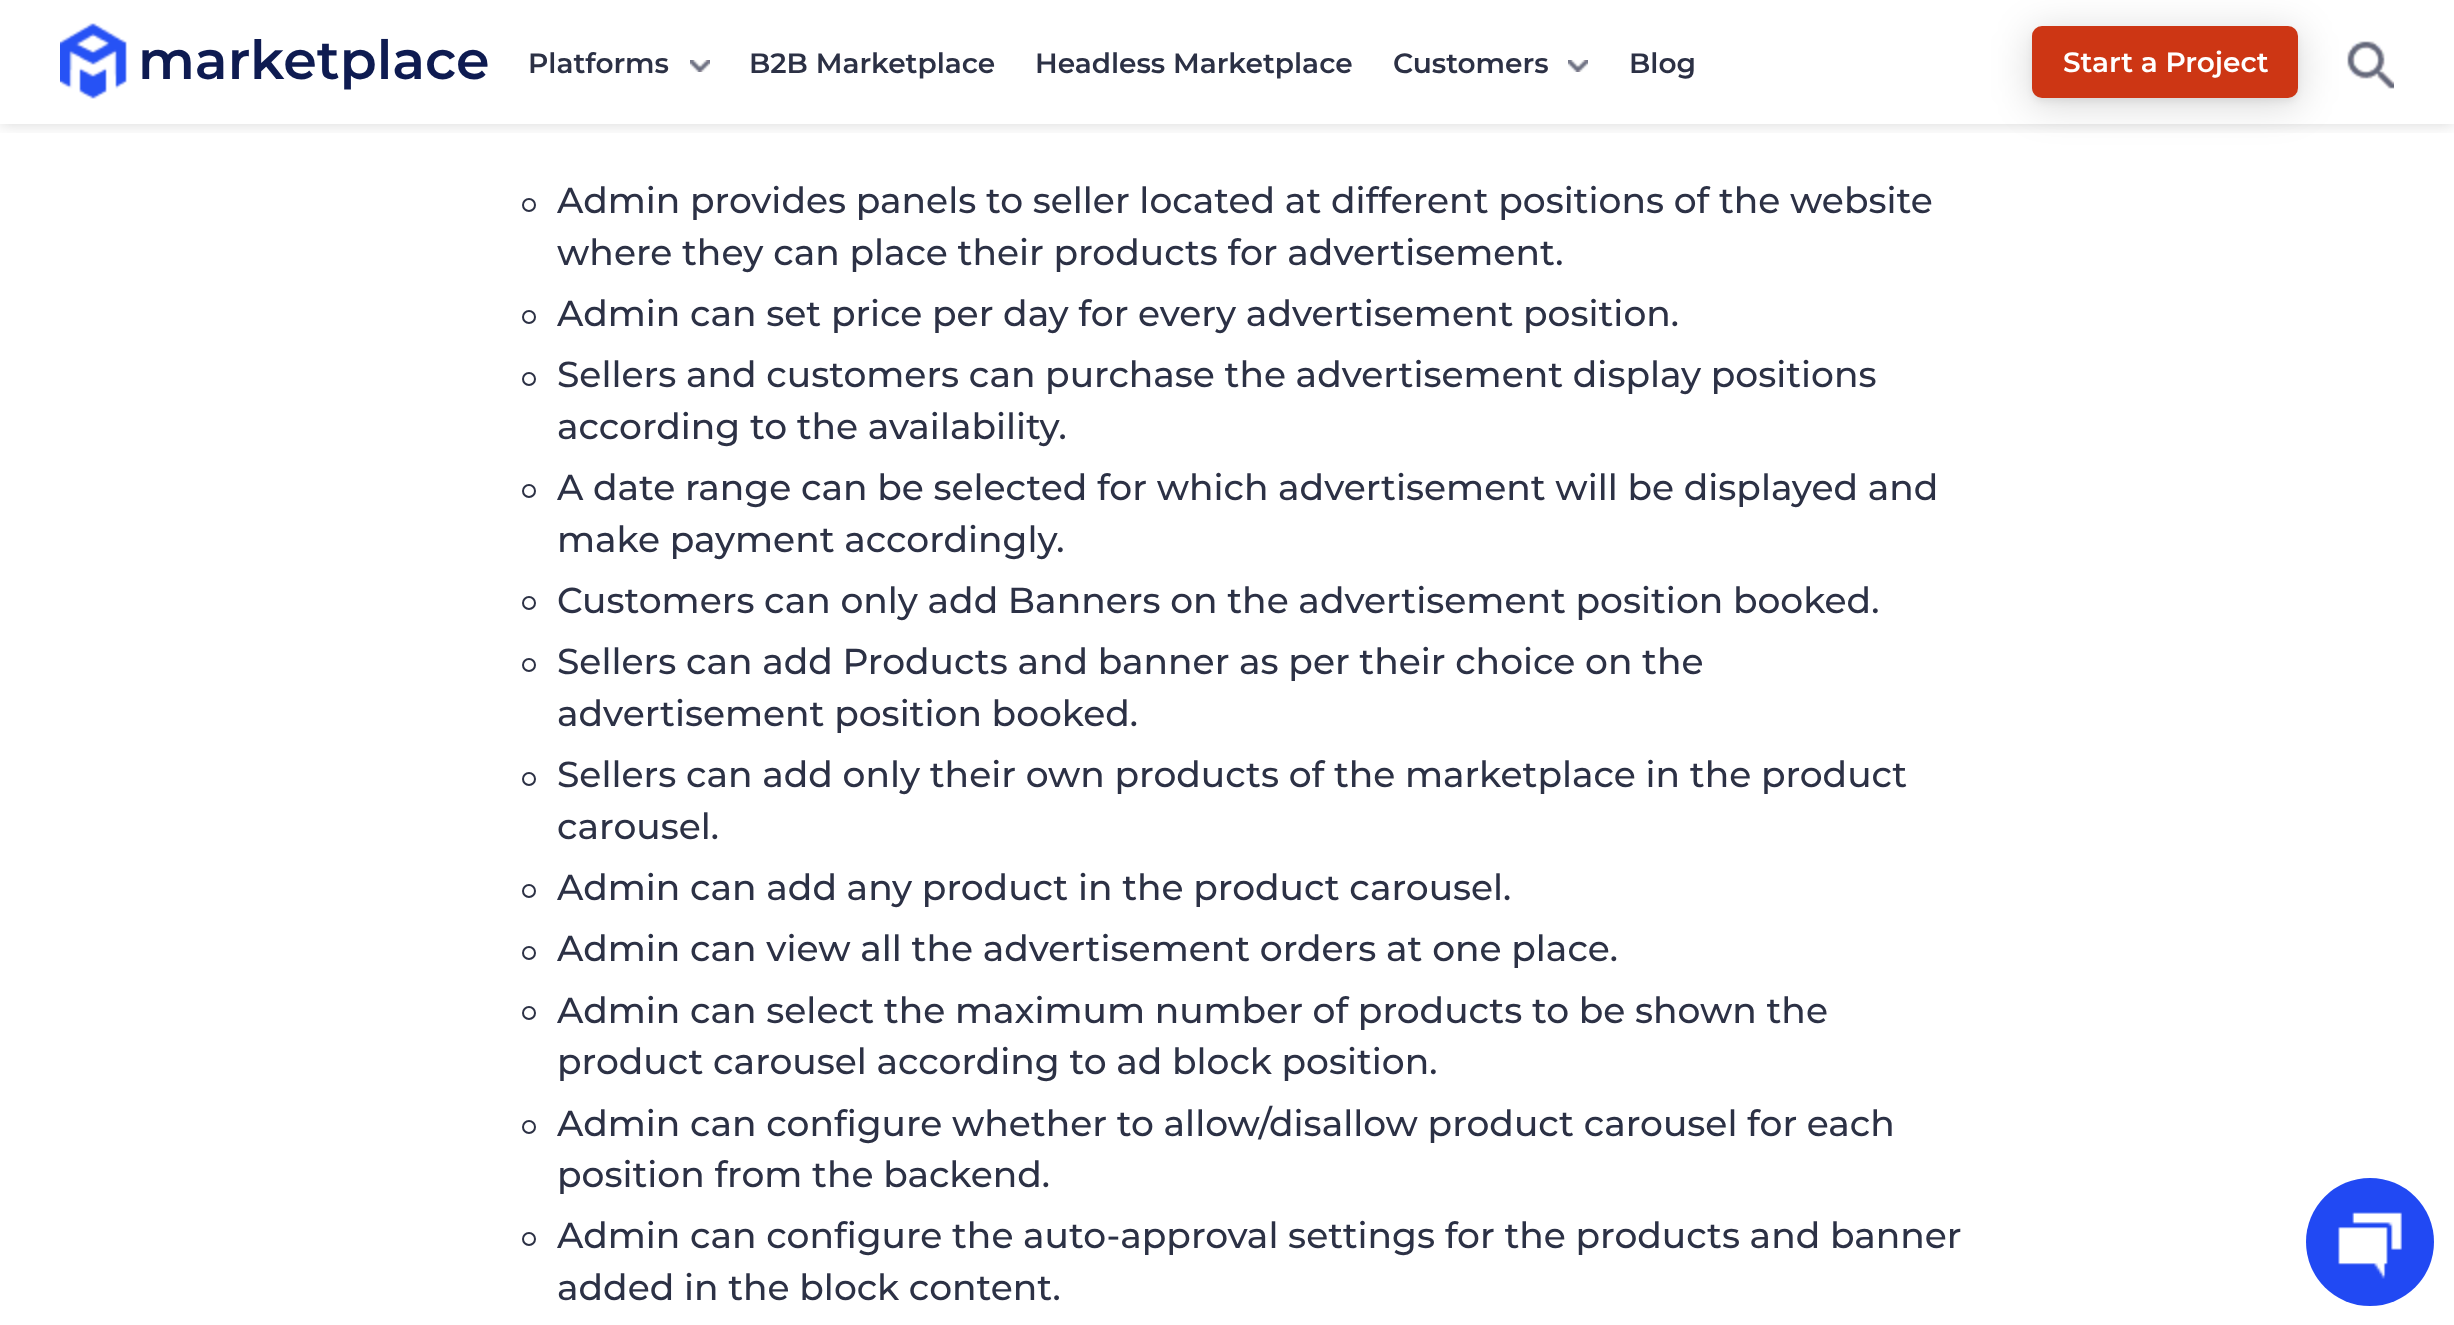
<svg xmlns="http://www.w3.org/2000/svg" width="2454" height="1325">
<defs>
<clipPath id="clip1"><rect x="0" y="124" width="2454" height="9"/></clipPath>
</defs>
<rect width="100%" height="100%" fill="#fff"/>
<g clip-path="url(#clip1)">
<rect width="2454" height="124" fill="#00000029" filter="blur(8px)"/>
</g>
<image x="60" y="23" width="67" height="76" href="media/1.png"/>
<text x="138" y="79" style="font-family:'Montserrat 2';font-size:54px;font-weight:100;fill:#0e1b51">marketplace</text>
<rect x="2030" y="30" width="270" height="76" rx="12" fill="#00000026" filter="blur(19px)"/>
<rect x="2032" y="30" width="266" height="72" rx="10" fill="#0000000d" filter="blur(3px)"/>
<rect x="2032" y="26" width="266" height="72" rx="10" fill="#cd3614"/>
<text x="2063" y="72" style="font-family:'Montserrat 2';font-size:28px;font-weight:100;fill:#fff">Start a Project</text>
<image x="2347" y="41" width="47" height="48" href="media/2.png"/>
<text x="528" y="73" style="font-family:'Montserrat 2';font-size:28px;font-weight:100;fill:#2c3145">Platforms</text>
<image x="690" y="60" width="20" height="12" href="media/3.png"/>
<text x="749" y="73" style="font-family:'Montserrat 2';font-size:28px;font-weight:100;fill:#2c3145">B2B Marketplace</text>
<text x="1035" y="73" style="font-family:'Montserrat 2';font-size:28px;font-weight:100;fill:#2c3145">Headless Marketplace</text>
<text x="1393" y="73" style="font-family:'Montserrat 2';font-size:28px;font-weight:100;fill:#2c3145">Customers</text>
<image x="1568" y="60" width="20" height="12" href="media/3.png"/>
<text x="1629" y="73" style="font-family:'Montserrat 2';font-size:28px;font-weight:100;fill:#2c3145">Blog</text>
<circle cx="529" cy="205" r="6" fill="none" stroke="#2c3145" stroke-width="2"/>
<text x="557" y="213" style="font-family:Montserrat;font-size:36px;font-weight:100;fill:#2c3145">Admin provides panels to seller located at different positions of the website</text>
<text x="557" y="265" style="font-family:Montserrat;font-size:36px;font-weight:100;fill:#2c3145">where they can place their products for advertisement.</text>
<circle cx="529" cy="317" r="6" fill="none" stroke="#2c3145" stroke-width="2"/>
<text x="557" y="326" style="font-family:Montserrat;font-size:36px;font-weight:100;fill:#2c3145">Admin can set price per day for every advertisement position.</text>
<circle cx="529" cy="379" r="6" fill="none" stroke="#2c3145" stroke-width="2"/>
<text x="557" y="387" style="font-family:Montserrat;font-size:36px;font-weight:100;fill:#2c3145">Sellers and customers can purchase the advertisement display positions</text>
<text x="557" y="439" style="font-family:Montserrat;font-size:36px;font-weight:100;fill:#2c3145">according to the availability.</text>
<circle cx="529" cy="491" r="6" fill="none" stroke="#2c3145" stroke-width="2"/>
<text x="557" y="500" style="font-family:Montserrat;font-size:36px;font-weight:100;fill:#2c3145">A date range can be selected for which advertisement will be displayed and</text>
<text x="557" y="552" style="font-family:Montserrat;font-size:36px;font-weight:100;fill:#2c3145">make payment accordingly.</text>
<circle cx="529" cy="603" r="6" fill="none" stroke="#2c3145" stroke-width="2"/>
<text x="557" y="613" style="font-family:Montserrat;font-size:36px;font-weight:100;fill:#2c3145">Customers can only add Banners on the advertisement position booked.</text>
<circle cx="529" cy="665" r="6" fill="none" stroke="#2c3145" stroke-width="2"/>
<text x="557" y="674" style="font-family:Montserrat;font-size:36px;font-weight:100;fill:#2c3145">Sellers can add Products and banner as per their choice on the</text>
<text x="557" y="726" style="font-family:Montserrat;font-size:36px;font-weight:100;fill:#2c3145">advertisement position booked.</text>
<circle cx="529" cy="779" r="6" fill="none" stroke="#2c3145" stroke-width="2"/>
<text x="557" y="787" style="font-family:Montserrat;font-size:36px;font-weight:100;fill:#2c3145">Sellers can add only their own products of the marketplace in the product</text>
<text x="557" y="839" style="font-family:Montserrat;font-size:36px;font-weight:100;fill:#2c3145">carousel.</text>
<circle cx="529" cy="891" r="6" fill="none" stroke="#2c3145" stroke-width="2"/>
<text x="557" y="900" style="font-family:Montserrat;font-size:36px;font-weight:100;fill:#2c3145">Admin can add any product in the product carousel.</text>
<circle cx="529" cy="953" r="6" fill="none" stroke="#2c3145" stroke-width="2"/>
<text x="557" y="961" style="font-family:Montserrat;font-size:36px;font-weight:100;fill:#2c3145">Admin can view all the advertisement orders at one place.</text>
<circle cx="529" cy="1013" r="6" fill="none" stroke="#2c3145" stroke-width="2"/>
<text x="557" y="1023" style="font-family:Montserrat;font-size:36px;font-weight:100;fill:#2c3145">Admin can select the maximum number of products to be shown the</text>
<text x="557" y="1074" style="font-family:Montserrat;font-size:36px;font-weight:100;fill:#2c3145">product carousel according to ad block position.</text>
<circle cx="529" cy="1127" r="6" fill="none" stroke="#2c3145" stroke-width="2"/>
<text x="557" y="1136" style="font-family:Montserrat;font-size:36px;font-weight:100;fill:#2c3145">Admin can configure whether to allow/disallow product carousel for each</text>
<text x="557" y="1187" style="font-family:Montserrat;font-size:36px;font-weight:100;fill:#2c3145">position from the backend.</text>
<circle cx="529" cy="1239" r="6" fill="none" stroke="#2c3145" stroke-width="2"/>
<text x="557" y="1248" style="font-family:Montserrat;font-size:36px;font-weight:100;fill:#2c3145">Admin can configure the auto-approval settings for the products and banner</text>
<text x="557" y="1300" style="font-family:Montserrat;font-size:36px;font-weight:100;fill:#2c3145">added in the block content.</text>
<circle cx="2370" cy="1242" r="64" fill="#2149f3"/>
<image x="2338" y="1212" width="64" height="67" href="media/4.png"/>
</svg>
